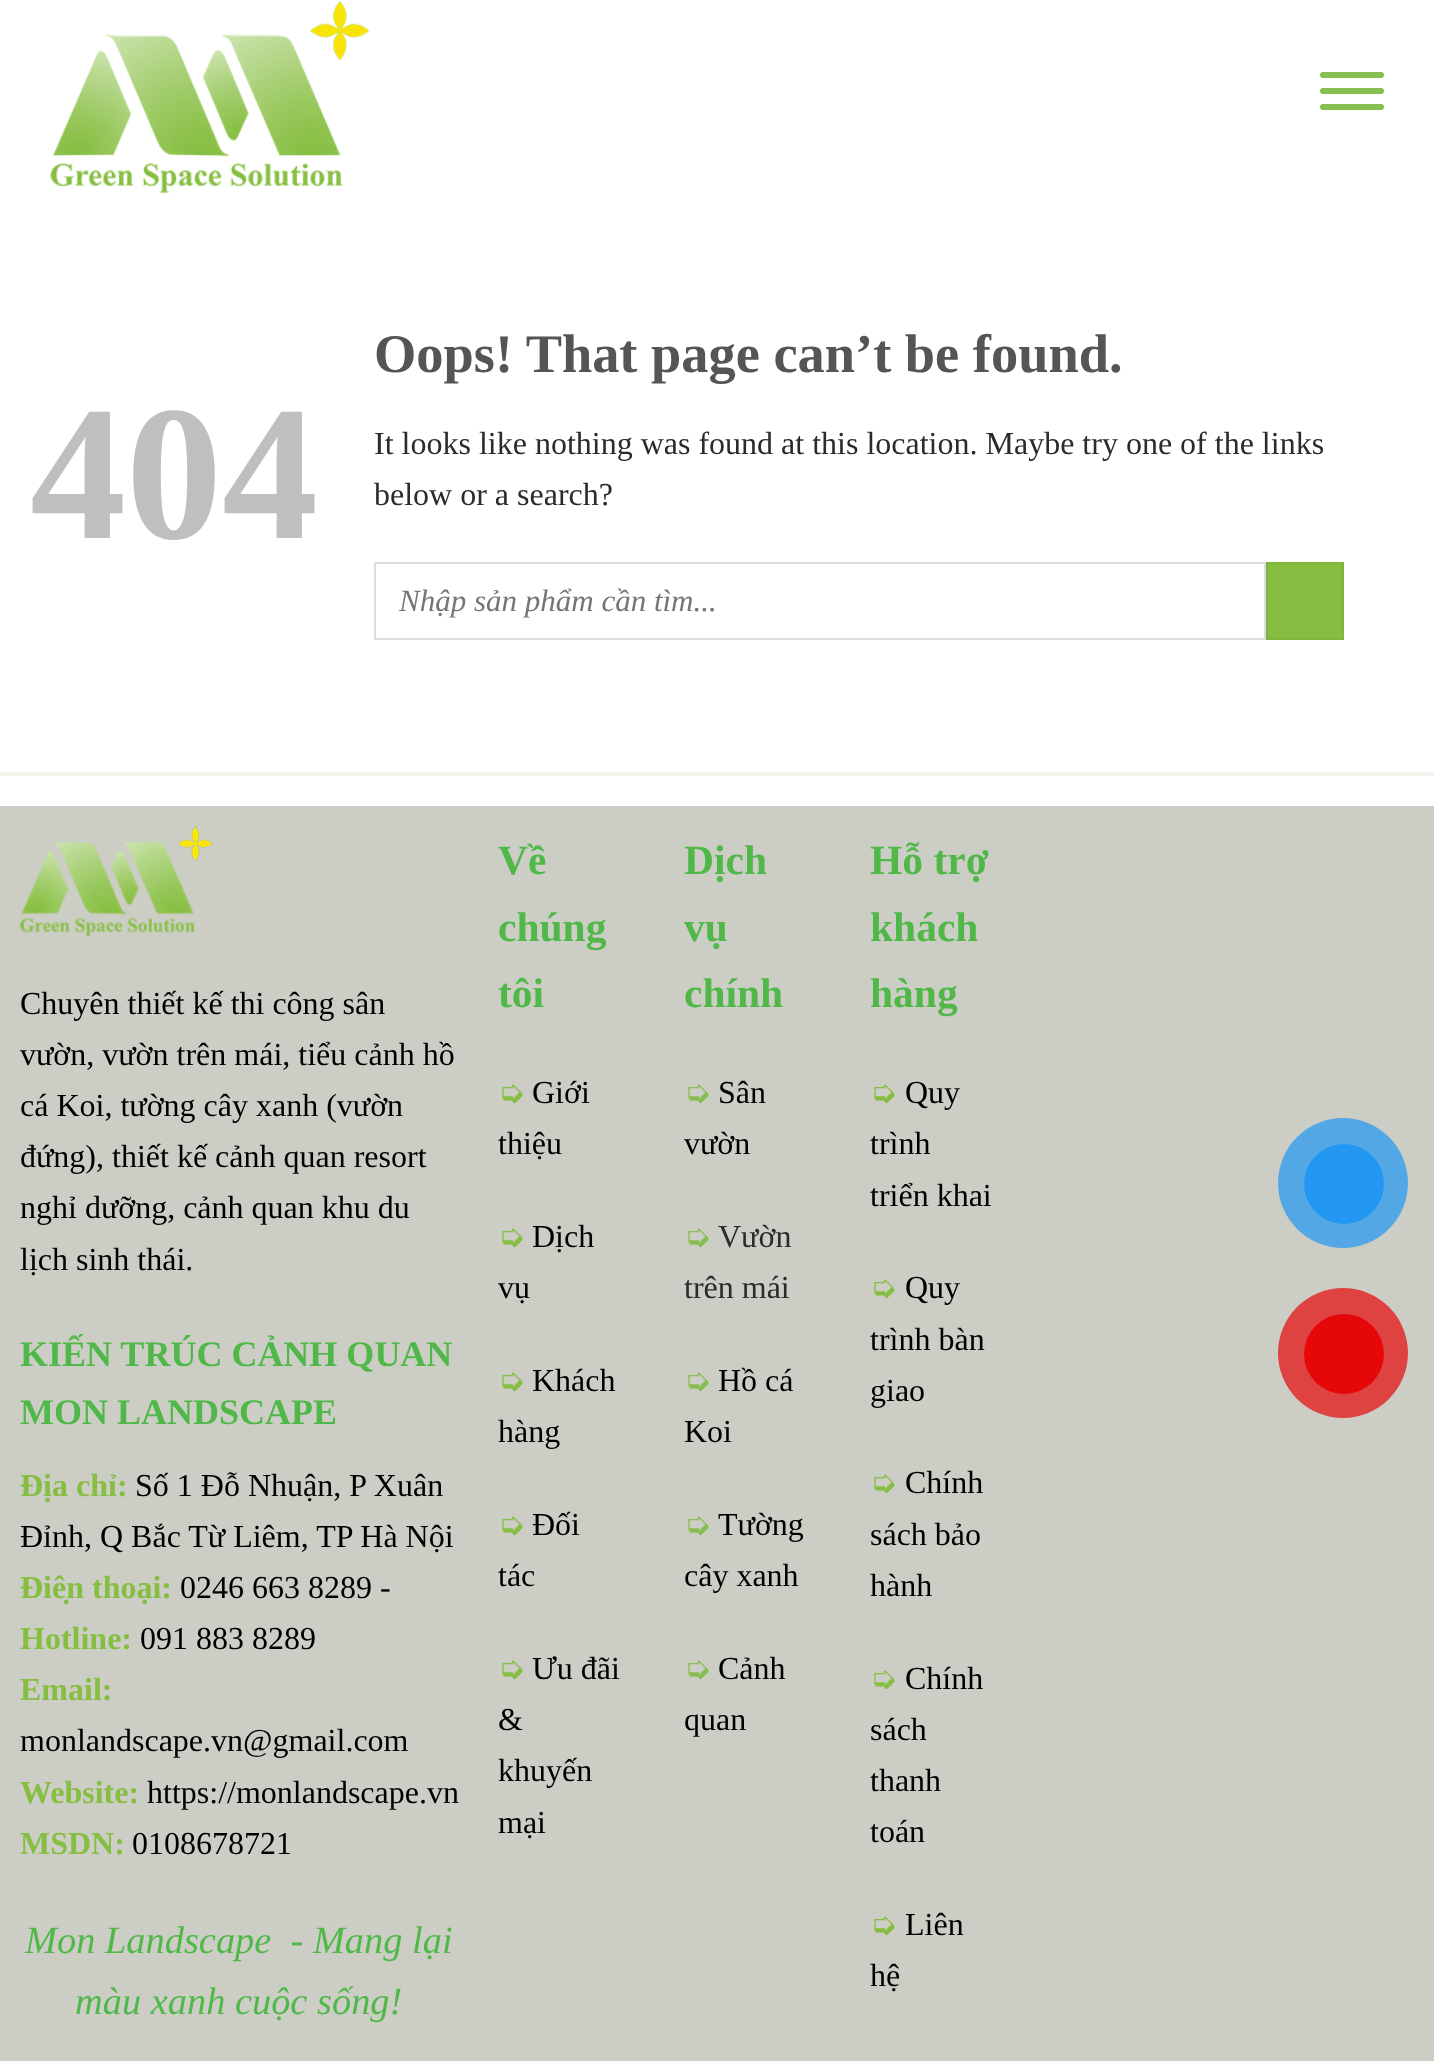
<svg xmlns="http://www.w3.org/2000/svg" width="1434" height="2061">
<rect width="100%" height="100%" fill="#fff"/>
<image x="50" y="1" width="320" height="192" href="media/1.png"/>
<rect x="1320" y="72" width="64" height="6" rx="3" fill="#86be51"/>
<rect x="1320" y="88" width="64" height="6" rx="3" fill="#86be51"/>
<rect x="1320" y="104" width="64" height="6" rx="3" fill="#86be51"/>
<text x="30" y="538" style="font-family:Liberation Serif;font-size:192px;font-weight:bold;fill:#bfbfbf">404</text>
<text x="374" y="372" style="font-family:Liberation Serif;font-size:54.4px;font-weight:bold;fill:#555">Oops! That page can’t be found.</text>
<text x="374" y="454" style="font-family:Liberation Serif;font-size:32px;fill:#2b2b2b">It looks like nothing was found at this location. Maybe try one of the links</text>
<text x="374" y="505" style="font-family:Liberation Serif;font-size:32px;fill:#2b2b2b">below or a search?</text>
<rect x="375" y="563" width="890" height="76" fill="none" stroke="#ddd" stroke-width="2"/>
<text x="399" y="611" style="font-family:Liberation Serif;font-size:31px;font-style:italic;fill:#757575">Nhập sản phẩm cần tìm...</text>
<rect x="1267" y="563" width="76" height="76" fill="#86be41" stroke="#7fb53e" stroke-width="2"/>
<rect y="774" width="1434" height="2" fill="#f3f9ec"/>
<rect y="772" width="1434" height="2" fill="#f2f2f2"/>
<rect y="806" width="1434" height="1255" fill="#cccec5"/>
<image x="20" y="826" width="192" height="110" href="media/2.png"/>
<text x="20" y="1014" style="font-family:Liberation Serif;font-size:32px;fill:#000">Chuyên thiết kế thi công sân</text>
<text x="20" y="1065" style="font-family:Liberation Serif;font-size:32px;fill:#000">vườn, vườn trên mái, tiểu cảnh hồ</text>
<text x="20" y="1116" style="font-family:Liberation Serif;font-size:32px;fill:#000">cá Koi, tường cây xanh (vườn</text>
<text x="20" y="1167" style="font-family:Liberation Serif;font-size:32px;fill:#000">đứng), thiết kế cảnh quan resort</text>
<text x="20" y="1218" style="font-family:Liberation Serif;font-size:32px;fill:#000">nghỉ dưỡng, cảnh quan khu du</text>
<text x="20" y="1270" style="font-family:Liberation Serif;font-size:32px;fill:#000">lịch sinh thái.</text>
<text x="20" y="1366" style="font-family:Liberation Serif;font-size:36px;font-weight:bold;fill:#50b848">KIẾN TRÚC CẢNH QUAN</text>
<text x="20" y="1424" style="font-family:Liberation Serif;font-size:36px;font-weight:bold;fill:#50b848">MON LANDSCAPE</text>
<text x="20" y="1496" style="font-family:Liberation Serif;font-size:32px;font-weight:bold;fill:#86be41">Địa chỉ:</text>
<text x="135" y="1496" style="font-family:Liberation Serif;font-size:32px;fill:#000">Số 1 Đỗ Nhuận, P Xuân</text>
<text x="20" y="1547" style="font-family:Liberation Serif;font-size:32px;fill:#000">Đỉnh, Q Bắc Từ Liêm, TP Hà Nội</text>
<text x="20" y="1598" style="font-family:Liberation Serif;font-size:32px;font-weight:bold;fill:#86be41">Điện thoại:</text>
<text x="180" y="1598" style="font-family:Liberation Serif;font-size:32px;fill:#000">0246 663 8289 -</text>
<text x="20" y="1649" style="font-family:Liberation Serif;font-size:32px;font-weight:bold;fill:#86be41">Hotline:</text>
<text x="140" y="1649" style="font-family:Liberation Serif;font-size:32px;fill:#000">091 883 8289</text>
<text x="20" y="1700" style="font-family:Liberation Serif;font-size:32px;font-weight:bold;fill:#86be41">Email:</text>
<text x="20" y="1751" style="font-family:Liberation Serif;font-size:32px;fill:#000">monlandscape.vn@gmail.com</text>
<text x="20" y="1803" style="font-family:Liberation Serif;font-size:32px;font-weight:bold;fill:#86be41">Website:</text>
<text x="147" y="1803" style="font-family:Liberation Serif;font-size:32px;fill:#000">https://monlandscape.vn</text>
<text x="20" y="1854" style="font-family:Liberation Serif;font-size:32px;font-weight:bold;fill:#86be41">MSDN:</text>
<text x="132" y="1854" style="font-family:Liberation Serif;font-size:32px;fill:#000">0108678721</text>
<text x="25" y="1953" style="font-family:Liberation Serif;font-size:38.4px;font-style:italic;fill:#50b848" xml:space="preserve">Mon Landscape  - Mang lại</text>
<text x="75" y="2014" style="font-family:Liberation Serif;font-size:38.4px;font-style:italic;fill:#50b848">màu xanh cuộc sống!</text>
<text x="498" y="874" style="font-family:Liberation Serif;font-size:41.5px;font-weight:bold;fill:#50b848">Về</text>
<text x="498" y="941" style="font-family:Liberation Serif;font-size:41.5px;font-weight:bold;fill:#50b848">chúng</text>
<text x="498" y="1007" style="font-family:Liberation Serif;font-size:41.5px;font-weight:bold;fill:#50b848">tôi</text>
<text x="498" y="1103" style="font-family:DejaVu Sans;font-size:32px;fill:#86be41">➭</text>
<text x="532" y="1103" style="font-family:Liberation Serif;font-size:32px;fill:#000">Giới</text>
<text x="498" y="1154" style="font-family:Liberation Serif;font-size:32px;fill:#000">thiệu</text>
<text x="498" y="1247" style="font-family:DejaVu Sans;font-size:32px;fill:#86be41">➭</text>
<text x="532" y="1247" style="font-family:Liberation Serif;font-size:32px;fill:#000">Dịch</text>
<text x="498" y="1298" style="font-family:Liberation Serif;font-size:32px;fill:#000">vụ</text>
<text x="498" y="1391" style="font-family:DejaVu Sans;font-size:32px;fill:#86be41">➭</text>
<text x="532" y="1391" style="font-family:Liberation Serif;font-size:32px;fill:#000">Khách</text>
<text x="498" y="1442" style="font-family:Liberation Serif;font-size:32px;fill:#000">hàng</text>
<text x="498" y="1535" style="font-family:DejaVu Sans;font-size:32px;fill:#86be41">➭</text>
<text x="532" y="1535" style="font-family:Liberation Serif;font-size:32px;fill:#000">Đối</text>
<text x="498" y="1586" style="font-family:Liberation Serif;font-size:32px;fill:#000">tác</text>
<text x="498" y="1679" style="font-family:DejaVu Sans;font-size:32px;fill:#86be41">➭</text>
<text x="532" y="1679" style="font-family:Liberation Serif;font-size:32px;fill:#000">Ưu đãi</text>
<text x="498" y="1730" style="font-family:Liberation Serif;font-size:32px;fill:#000">&amp;</text>
<text x="498" y="1781" style="font-family:Liberation Serif;font-size:32px;fill:#000">khuyến</text>
<text x="498" y="1833" style="font-family:Liberation Serif;font-size:32px;fill:#000">mại</text>
<text x="684" y="874" style="font-family:Liberation Serif;font-size:41.5px;font-weight:bold;fill:#50b848">Dịch</text>
<text x="684" y="941" style="font-family:Liberation Serif;font-size:41.5px;font-weight:bold;fill:#50b848">vụ</text>
<text x="684" y="1007" style="font-family:Liberation Serif;font-size:41.5px;font-weight:bold;fill:#50b848">chính</text>
<text x="684" y="1103" style="font-family:DejaVu Sans;font-size:32px;fill:#86be51">➭</text>
<text x="718" y="1103" style="font-family:Liberation Serif;font-size:32px;fill:#000">Sân</text>
<text x="684" y="1154" style="font-family:Liberation Serif;font-size:32px;fill:#000">vườn</text>
<text x="684" y="1247" style="font-family:DejaVu Sans;font-size:32px;fill:#86be51">➭</text>
<text x="718" y="1247" style="font-family:Liberation Serif;font-size:32px;fill:#2b2b2b">Vườn</text>
<text x="684" y="1298" style="font-family:Liberation Serif;font-size:32px;fill:#2b2b2b">trên mái</text>
<text x="684" y="1391" style="font-family:DejaVu Sans;font-size:32px;fill:#86be51">➭</text>
<text x="718" y="1391" style="font-family:Liberation Serif;font-size:32px;fill:#000">Hồ cá</text>
<text x="684" y="1442" style="font-family:Liberation Serif;font-size:32px;fill:#000">Koi</text>
<text x="684" y="1535" style="font-family:DejaVu Sans;font-size:32px;fill:#86be51">➭</text>
<text x="718" y="1535" style="font-family:Liberation Serif;font-size:32px;fill:#000">Tường</text>
<text x="684" y="1586" style="font-family:Liberation Serif;font-size:32px;fill:#000">cây xanh</text>
<text x="684" y="1679" style="font-family:DejaVu Sans;font-size:32px;fill:#86be51">➭</text>
<text x="718" y="1679" style="font-family:Liberation Serif;font-size:32px;fill:#000">Cảnh</text>
<text x="684" y="1730" style="font-family:Liberation Serif;font-size:32px;fill:#000">quan</text>
<text x="870" y="874" style="font-family:Liberation Serif;font-size:41.5px;font-weight:bold;fill:#50b848">Hỗ trợ</text>
<text x="870" y="941" style="font-family:Liberation Serif;font-size:41.5px;font-weight:bold;fill:#50b848">khách</text>
<text x="870" y="1007" style="font-family:Liberation Serif;font-size:41.5px;font-weight:bold;fill:#50b848">hàng</text>
<text x="870" y="1103" style="font-family:DejaVu Sans;font-size:32px;fill:#86be41">➭</text>
<text x="905" y="1103" style="font-family:Liberation Serif;font-size:32px;fill:#000">Quy</text>
<text x="870" y="1154" style="font-family:Liberation Serif;font-size:32px;fill:#000">trình</text>
<text x="870" y="1206" style="font-family:Liberation Serif;font-size:32px;fill:#000">triển khai</text>
<text x="870" y="1298" style="font-family:DejaVu Sans;font-size:32px;fill:#86be41">➭</text>
<text x="905" y="1298" style="font-family:Liberation Serif;font-size:32px;fill:#000">Quy</text>
<text x="870" y="1350" style="font-family:Liberation Serif;font-size:32px;fill:#000">trình bàn</text>
<text x="870" y="1401" style="font-family:Liberation Serif;font-size:32px;fill:#000">giao</text>
<text x="870" y="1493" style="font-family:DejaVu Sans;font-size:32px;fill:#86be41">➭</text>
<text x="905" y="1493" style="font-family:Liberation Serif;font-size:32px;fill:#000">Chính</text>
<text x="870" y="1545" style="font-family:Liberation Serif;font-size:32px;fill:#000">sách bảo</text>
<text x="870" y="1596" style="font-family:Liberation Serif;font-size:32px;fill:#000">hành</text>
<text x="870" y="1689" style="font-family:DejaVu Sans;font-size:32px;fill:#86be41">➭</text>
<text x="905" y="1689" style="font-family:Liberation Serif;font-size:32px;fill:#000">Chính</text>
<text x="870" y="1740" style="font-family:Liberation Serif;font-size:32px;fill:#000">sách</text>
<text x="870" y="1791" style="font-family:Liberation Serif;font-size:32px;fill:#000">thanh</text>
<text x="870" y="1842" style="font-family:Liberation Serif;font-size:32px;fill:#000">toán</text>
<text x="870" y="1935" style="font-family:DejaVu Sans;font-size:32px;fill:#86be41">➭</text>
<text x="905" y="1935" style="font-family:Liberation Serif;font-size:32px;fill:#000">Liên</text>
<text x="870" y="1986" style="font-family:Liberation Serif;font-size:32px;fill:#000">hệ</text>
<circle cx="1343" cy="1183" r="65" fill="#54a7e5"/>
<circle cx="1344" cy="1184" r="40" fill="#2196f3"/>
<circle cx="1343" cy="1353" r="65" fill="#de4341"/>
<circle cx="1344" cy="1354" r="40" fill="#e60808"/>
</svg>
